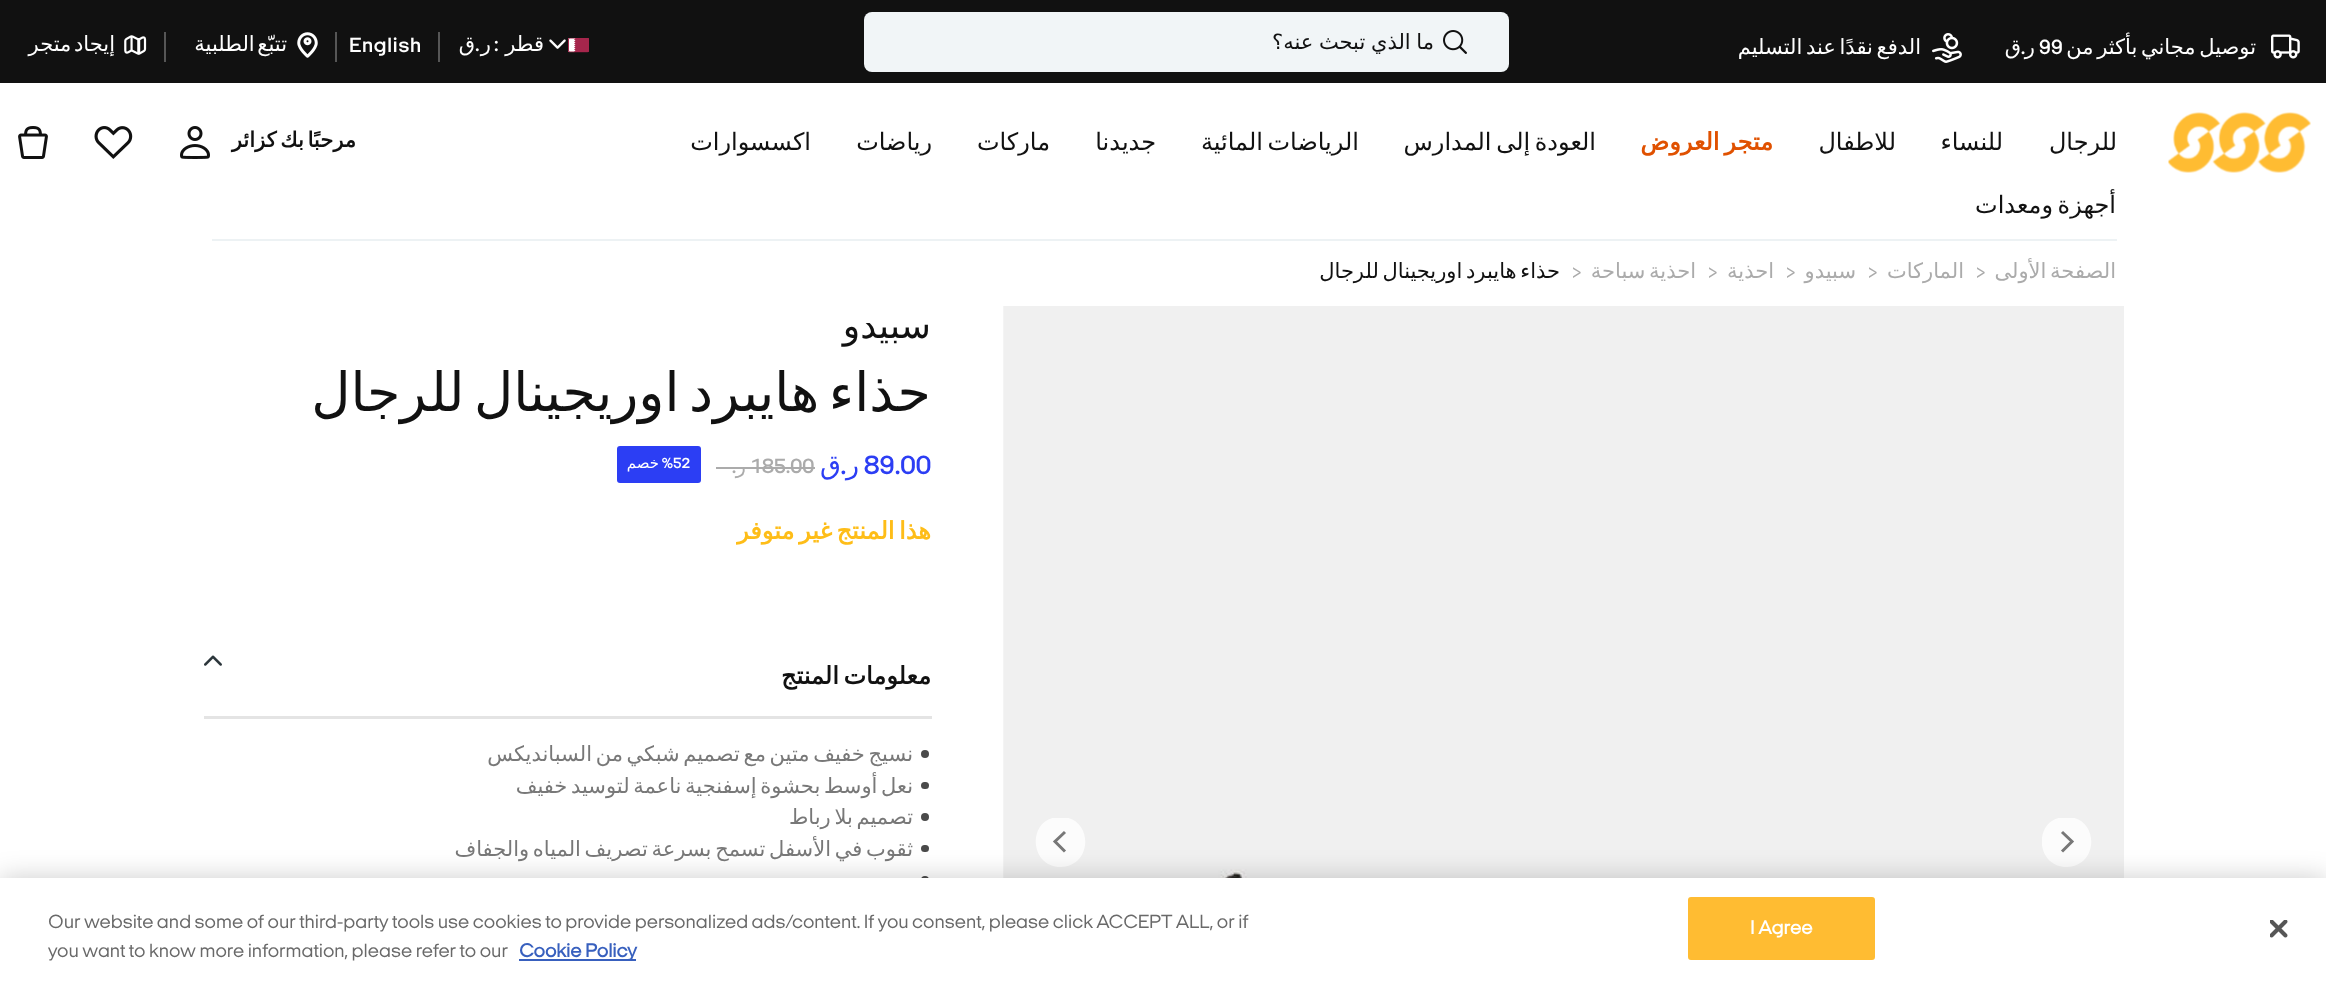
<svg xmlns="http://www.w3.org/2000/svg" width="2326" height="983">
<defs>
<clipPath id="clip1"><rect x="938" y="30" width="496" height="24"/></clipPath>
<clipPath id="clip2"><rect x="2042" y="818" width="52" height="52"/></clipPath>
<clipPath id="clip3"><rect x="1035" y="818" width="53" height="52"/></clipPath>
</defs>
<rect width="100%" height="100%" fill="#fff"/>
<rect width="2326" height="83" fill="#111"/>
<image x="2271" y="34" width="29" height="25" href="media/1.png"/>
<text x="2256" y="54" word-spacing="-3" style="font-family:DejaVu Sans;font-size:21px;direction:rtl;fill:#fff">توصيل مجاني بأكثر من</text>
<text x="2039" y="54" style="font-family:'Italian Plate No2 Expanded';font-size:21px;font-weight:600;fill:#fff">99</text>
<text x="2025" y="54" style="font-family:'Italian Plate No2 Expanded';font-size:21px;font-weight:600;direction:rtl;fill:#fff">.</text>
<text x="2035" y="54" style="font-family:DejaVu Sans;font-size:21px;direction:rtl;fill:#fff">ر</text>
<text x="2021" y="54" style="font-family:DejaVu Sans;font-size:21px;direction:rtl;fill:#fff">ق</text>
<image x="1932" y="33" width="30" height="30" href="media/2.png"/>
<text x="1921" y="54" word-spacing="-3" style="font-family:DejaVu Sans;font-size:21px;direction:rtl;fill:#fff">الدفع نقدًا عند التسليم</text>
<rect x="864" y="12" width="645" height="60" rx="8" fill="#f1f5f7"/>
<image x="1443" y="30" width="24" height="24" href="media/3.png"/>
<g clip-path="url(#clip1)">
<text x="1434" y="49" word-spacing="-1" style="font-family:DejaVu Sans;font-size:21px;direction:rtl;fill:#111">ما الذي تبحث عنه؟</text>
</g>
<image x="568" y="38" width="21" height="15" href="media/4.png"/>
<image x="549" y="39" width="17" height="10" href="media/5.png"/>
<text x="544" y="51" style="font-family:DejaVu Sans;font-size:21px;letter-spacing:0.75px;direction:rtl;fill:#fff">قطر</text>
<text x="499" y="51" style="font-family:'Italian Plate No2 Expanded';font-size:21px;font-weight:600;letter-spacing:0.75px;direction:rtl;fill:#fff">:</text>
<text x="491" y="51" style="font-family:DejaVu Sans;font-size:21px;letter-spacing:0.75px;direction:rtl;fill:#fff">ر</text>
<text x="480" y="51" style="font-family:'Italian Plate No2 Expanded';font-size:21px;font-weight:600;letter-spacing:0.75px;direction:rtl;fill:#fff">.</text>
<text x="475" y="51" style="font-family:DejaVu Sans;font-size:21px;letter-spacing:0.75px;direction:rtl;fill:#fff">ق</text>
<rect x="438" y="32" width="2" height="30" fill="#565656"/>
<text x="349" y="52" style="font-family:'Italian Plate No2 Expanded';font-size:21px;font-weight:600;letter-spacing:0.75px;fill:#fff">English</text>
<rect x="335" y="32" width="2" height="30" fill="#565656"/>
<image x="297" y="32" width="21" height="26" href="media/6.png"/>
<text x="287" y="51" word-spacing="-4" style="font-family:DejaVu Sans;font-size:21px;letter-spacing:0.75px;direction:rtl;fill:#fff">تتبّع الطلبية</text>
<rect x="164" y="32" width="2" height="30" fill="#565656"/>
<image x="124" y="35" width="23" height="20" href="media/7.png"/>
<text x="115" y="51" word-spacing="-4" style="font-family:DejaVu Sans;font-size:21px;letter-spacing:0.75px;direction:rtl;fill:#fff">إيجاد متجر</text>
<image x="2168" y="112" width="143" height="61" href="media/8.png"/>
<text x="2117" y="150" style="font-family:DejaVu Sans;font-size:24px;direction:rtl;fill:#111">للرجال</text>
<text x="2003" y="150" style="font-family:DejaVu Sans;font-size:24px;direction:rtl;fill:#111">للنساء</text>
<text x="1896" y="150" style="font-family:DejaVu Sans;font-size:24px;direction:rtl;fill:#111">للاطفال</text>
<text x="1773" y="150" word-spacing="-3" style="font-family:DejaVu Sans;font-size:24px;font-weight:bold;direction:rtl;fill:#e05100">متجر العروض</text>
<text x="1596" y="150" word-spacing="-3" style="font-family:DejaVu Sans;font-size:24px;direction:rtl;fill:#111">العودة إلى المدارس</text>
<text x="1359" y="150" word-spacing="-3" style="font-family:DejaVu Sans;font-size:24px;direction:rtl;fill:#111">الرياضات المائية</text>
<text x="1156" y="150" style="font-family:DejaVu Sans;font-size:24px;direction:rtl;fill:#111">جديدنا</text>
<text x="1050" y="150" style="font-family:DejaVu Sans;font-size:24px;direction:rtl;fill:#111">ماركات</text>
<text x="932" y="150" style="font-family:DejaVu Sans;font-size:24px;direction:rtl;fill:#111">رياضات</text>
<text x="811" y="150" style="font-family:DejaVu Sans;font-size:24px;direction:rtl;fill:#111">اكسسوارات</text>
<text x="2116" y="213" word-spacing="-3" style="font-family:DejaVu Sans;font-size:24px;direction:rtl;fill:#111">أجهزة ومعدات</text>
<text x="356" y="147" word-spacing="-3" style="font-family:DejaVu Sans;font-size:21px;font-weight:bold;direction:rtl;fill:#111">مرحبًا بك كزائر</text>
<image x="180" y="126" width="30" height="33" href="media/9.png"/>
<image x="94" y="126" width="39" height="33" href="media/10.png"/>
<image x="18" y="126" width="30" height="33" href="media/11.png"/>
<rect x="212" y="239" width="1905" height="2" fill="#edf2f4"/>
<text x="2116" y="278" word-spacing="-3" style="font-family:DejaVu Sans;font-size:21px;direction:rtl;fill:#ababab">الصفحة الأولى</text>
<text x="1976" y="278" style="font-family:'Italian Plate No2 Expanded';font-size:21px;fill:#ababab">&gt;</text>
<text x="1964" y="278" style="font-family:DejaVu Sans;font-size:21px;direction:rtl;fill:#ababab">الماركات</text>
<text x="1868" y="278" style="font-family:'Italian Plate No2 Expanded';font-size:21px;fill:#ababab">&gt;</text>
<text x="1856" y="278" style="font-family:DejaVu Sans;font-size:21px;direction:rtl;fill:#ababab">سبيدو</text>
<text x="1786" y="278" style="font-family:'Italian Plate No2 Expanded';font-size:21px;fill:#ababab">&gt;</text>
<text x="1774" y="278" style="font-family:DejaVu Sans;font-size:21px;direction:rtl;fill:#ababab">احذية</text>
<text x="1708" y="278" style="font-family:'Italian Plate No2 Expanded';font-size:21px;fill:#ababab">&gt;</text>
<text x="1696" y="278" word-spacing="-3" style="font-family:DejaVu Sans;font-size:21px;direction:rtl;fill:#ababab">احذية سباحة</text>
<text x="1572" y="278" style="font-family:'Italian Plate No2 Expanded';font-size:21px;fill:#ababab">&gt;</text>
<text x="1560" y="278" word-spacing="-3" style="font-family:DejaVu Sans;font-size:21px;direction:rtl;fill:#111">حذاء هايبرد اوريجينال للرجال</text>
<image x="1003" y="306" width="1121" height="572" href="media/12.png"/>
<g clip-path="url(#clip2)">
<path d="M2066 817c33-1 34 49 1 50c-33 0-34-50-1-50z" fill="#fcfcfc"/>
</g>
<path d="M2062 832l10 9.5l-10 10" fill="none" stroke="#787878" stroke-width="3"/>
<g clip-path="url(#clip3)">
<path d="M1061 867c-33 0-34-50-1-50c33-1 34 49 1 50z" fill="#fcfcfc"/>
</g>
<path d="M1065 851.5l-10-10l10-9.5" fill="none" stroke="#787878" stroke-width="3"/>
<text x="931" y="338" style="font-family:DejaVu Sans;font-size:36px;direction:rtl;fill:#111">سبيدو</text>
<text x="931" y="411" word-spacing="-7.5" style="font-family:DejaVu Sans;font-size:54px;direction:rtl;fill:#111">حذاء هايبرد اوريجينال للرجال</text>
<text x="864" y="474" style="font-family:'Italian Plate No2 Expanded';font-size:27px;font-weight:600;fill:#2c3ef4">89.00</text>
<text x="846" y="474" style="font-family:'Italian Plate No2 Expanded';font-size:27px;font-weight:600;direction:rtl;fill:#2c3ef4">.</text>
<text x="859" y="474" style="font-family:DejaVu Sans;font-size:27px;direction:rtl;fill:#2c3ef4">ر</text>
<text x="841" y="474" style="font-family:DejaVu Sans;font-size:27px;direction:rtl;fill:#2c3ef4">ق</text>
<text x="750" y="473" style="font-family:'Italian Plate No2 Expanded';font-size:21px;font-weight:600;fill:#ababab">185.00</text>
<rect x="716" y="467" width="34" height="2" fill="#ababab"/>
<rect x="750" y="467" width="65" height="2" fill="#ababab"/>
<text x="736" y="473" style="font-family:'Italian Plate No2 Expanded';font-size:21px;font-weight:600;direction:rtl;fill:#ababab">.</text>
<text x="746" y="473" style="font-family:DejaVu Sans;font-size:21px;direction:rtl;fill:#ababab">ر</text>
<rect x="617" y="446" width="84" height="37" rx="3" fill="#2c3ef4"/>
<text x="673" y="468" style="font-family:'Italian Plate No2 Expanded';font-size:15px;font-weight:600;fill:#fff">52</text>
<text x="673" y="468" style="font-family:'Italian Plate No2 Expanded';font-size:15px;font-weight:600;direction:rtl;fill:#fff">%</text>
<text x="659" y="468" style="font-family:DejaVu Sans;font-size:15px;direction:rtl;fill:#fff">خصم</text>
<text x="931" y="539" word-spacing="-3" style="font-family:DejaVu Sans;font-size:24px;font-weight:bold;direction:rtl;fill:#febd18">هذا المنتج غير متوفر</text>
<rect x="204" y="716" width="728" height="3" fill="#e4e4e4"/>
<image x="204" y="655" width="18" height="11" href="media/13.png"/>
<text x="931" y="684" word-spacing="-3" style="font-family:DejaVu Sans;font-size:24px;font-weight:bold;direction:rtl;fill:#111">معلومات المنتج</text>
<text x="913" y="761" word-spacing="-3" style="font-family:DejaVu Sans;font-size:21px;direction:rtl;fill:#787878">نسيج خفيف متين مع تصميم شبكي من السبانديكس</text>
<circle cx="925" cy="754" r="4" fill="#4a4a4a"/>
<text x="913" y="793" word-spacing="-3" style="font-family:DejaVu Sans;font-size:21px;direction:rtl;fill:#787878">نعل أوسط بحشوة إسفنجية ناعمة لتوسيد خفيف</text>
<rect x="921" y="782" width="8" height="7" rx="3.5" fill="#4a4a4a"/>
<circle cx="925" cy="817" r="4" fill="#4a4a4a"/>
<text x="913" y="824" word-spacing="-3" style="font-family:DejaVu Sans;font-size:21px;direction:rtl;fill:#787878">تصميم بلا رباط</text>
<text x="913" y="856" word-spacing="-3" style="font-family:DejaVu Sans;font-size:21px;direction:rtl;fill:#787878">ثقوب في الأسفل تسمح بسرعة تصريف المياه والجفاف</text>
<rect x="921" y="845" width="8" height="7" rx="3.5" fill="#4a4a4a"/>
<circle cx="925" cy="880" r="4" fill="#4a4a4a"/>
<rect y="878" width="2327" height="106" fill="#00000033" filter="blur(13.5px)"/>
<rect y="878" width="2326" height="105" fill="#fff"/>
<image x="2270" y="920" width="18" height="18" href="media/14.png"/>
<rect x="1689" y="898" width="185" height="61" rx="2" fill="#ffbc32" stroke="#ffbc32" stroke-width="2"/>
<text x="1750" y="934" style="font-family:'Italian Plate No2 Expanded';font-size:19.5px;font-weight:bold;letter-spacing:0.25px;fill:#fff">I Agree</text>
<text x="48" y="928" style="font-family:'Italian Plate No2 Expanded';font-size:19.5px;fill:#696969">Our website and some of our third-party tools use cookies to provide personalized ads/content. If you consent, please click ACCEPT ALL, or if</text>
<rect x="519" y="959" width="117" height="2" fill="#3860be"/>
<text x="519" y="957" style="font-family:'Italian Plate No2 Expanded';font-size:19.5px;font-weight:bold;fill:#3860be">Cookie Policy</text>
<text x="48" y="957" style="font-family:'Italian Plate No2 Expanded';font-size:19.5px;fill:#696969">you want to know more information, please refer to our</text>
</svg>
